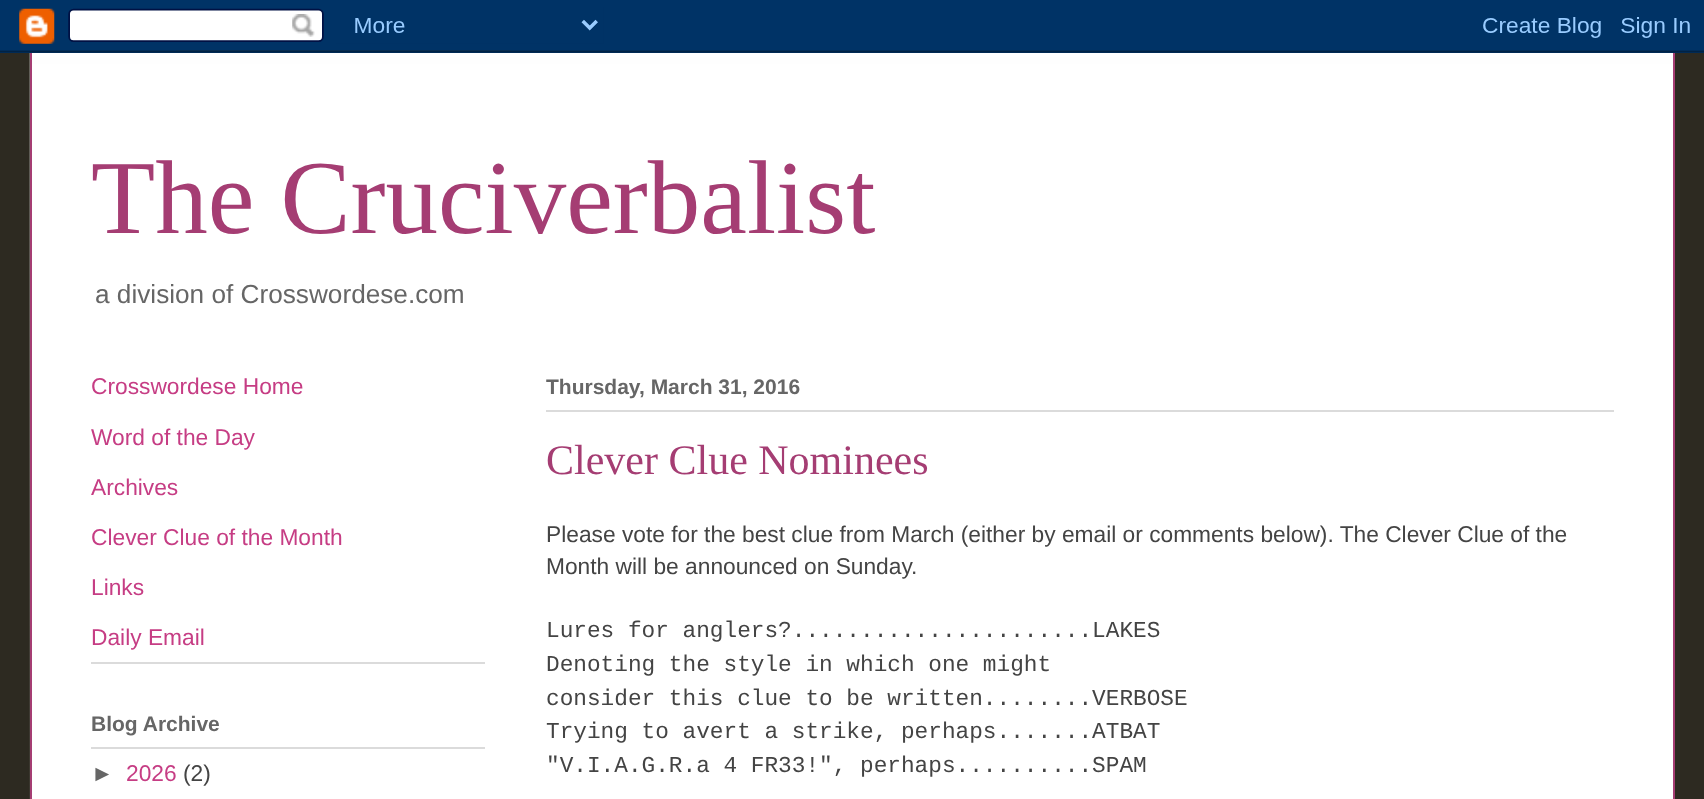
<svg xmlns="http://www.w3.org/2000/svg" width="1704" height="799">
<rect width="100%" height="100%" fill="#2d2a21"/>
<image x="0" y="0" width="1704" height="53" href="media/1.png"/>
<rect x="32" y="64" width="1641" height="735" fill="#fff"/>
<image x="29" y="53" width="1644" height="746" href="media/2.png"/>
<rect x="1673" y="53" width="2" height="746" fill="#a53d73"/>
<rect x="30" y="53" width="2" height="746" fill="#a53d73"/>
<text x="91" y="233" style="font-family:Liberation Serif;font-size:105px;fill:#a53d73">The Cruciverbalist</text>
<text x="95" y="303" style="font-family:Liberation Sans;font-size:26.2px;fill:#666">a division of Crosswordese.com</text>
<rect x="91" y="662" width="394" height="2" fill="#dbdbdb"/>
<text x="91" y="394" style="font-family:Liberation Sans;font-size:22.75px;fill:#c63d84">Crosswordese Home</text>
<text x="91" y="445" style="font-family:Liberation Sans;font-size:22.75px;fill:#c63d84">Word of the Day</text>
<text x="91" y="495" style="font-family:Liberation Sans;font-size:22.75px;fill:#c63d84">Archives</text>
<text x="91" y="545" style="font-family:Liberation Sans;font-size:22.75px;fill:#c63d84">Clever Clue of the Month</text>
<text x="91" y="595" style="font-family:Liberation Sans;font-size:22.75px;fill:#c63d84">Links</text>
<text x="91" y="645" style="font-family:Liberation Sans;font-size:22.75px;fill:#c63d84">Daily Email</text>
<rect x="91" y="747" width="394" height="2" fill="#dbdbdb"/>
<text x="91" y="731" style="font-family:Liberation Sans;font-size:21px;font-weight:bold;fill:#666">Blog Archive</text>
<text x="91" y="781" style="font-family:Liberation Sans;font-size:22.75px;fill:#666">►</text>
<text x="126" y="781" style="font-family:Liberation Sans;font-size:22.75px;fill:#c63d84">2026</text>
<text x="183" y="781" style="font-family:Liberation Sans;font-size:22.75px;fill:#444">(2)</text>
<rect x="546" y="410" width="1068" height="2" fill="#dbdbdb"/>
<text x="546" y="394" style="font-family:Liberation Sans;font-size:21px;font-weight:bold;fill:#666">Thursday, March 31, 2016</text>
<text x="546" y="474" style="font-family:Liberation Serif;font-size:42px;fill:#a53d73">Clever Clue Nominees</text>
<text x="546" y="542" style="font-family:Liberation Sans;font-size:22.75px;fill:#444">Please vote for the best clue from March (either by email or comments below). The Clever Clue of the</text>
<text x="546" y="574" style="font-family:Liberation Sans;font-size:22.75px;fill:#444">Month will be announced on Sunday.</text>
<text x="546" y="637" style="font-family:Liberation Mono;font-size:22.75px;fill:#444">Lures for anglers?......................LAKES</text>
<text x="546" y="671" style="font-family:Liberation Mono;font-size:22.75px;fill:#444">Denoting the style in which one might</text>
<text x="546" y="705" style="font-family:Liberation Mono;font-size:22.75px;fill:#444">consider this clue to be written........VERBOSE</text>
<text x="546" y="738" style="font-family:Liberation Mono;font-size:22.75px;fill:#444">Trying to avert a strike, perhaps.......ATBAT</text>
<text x="546" y="772" style="font-family:Liberation Mono;font-size:22.75px;fill:#444">"V.I.A.G.R.a 4 FR33!", perhaps..........SPAM</text>
</svg>
